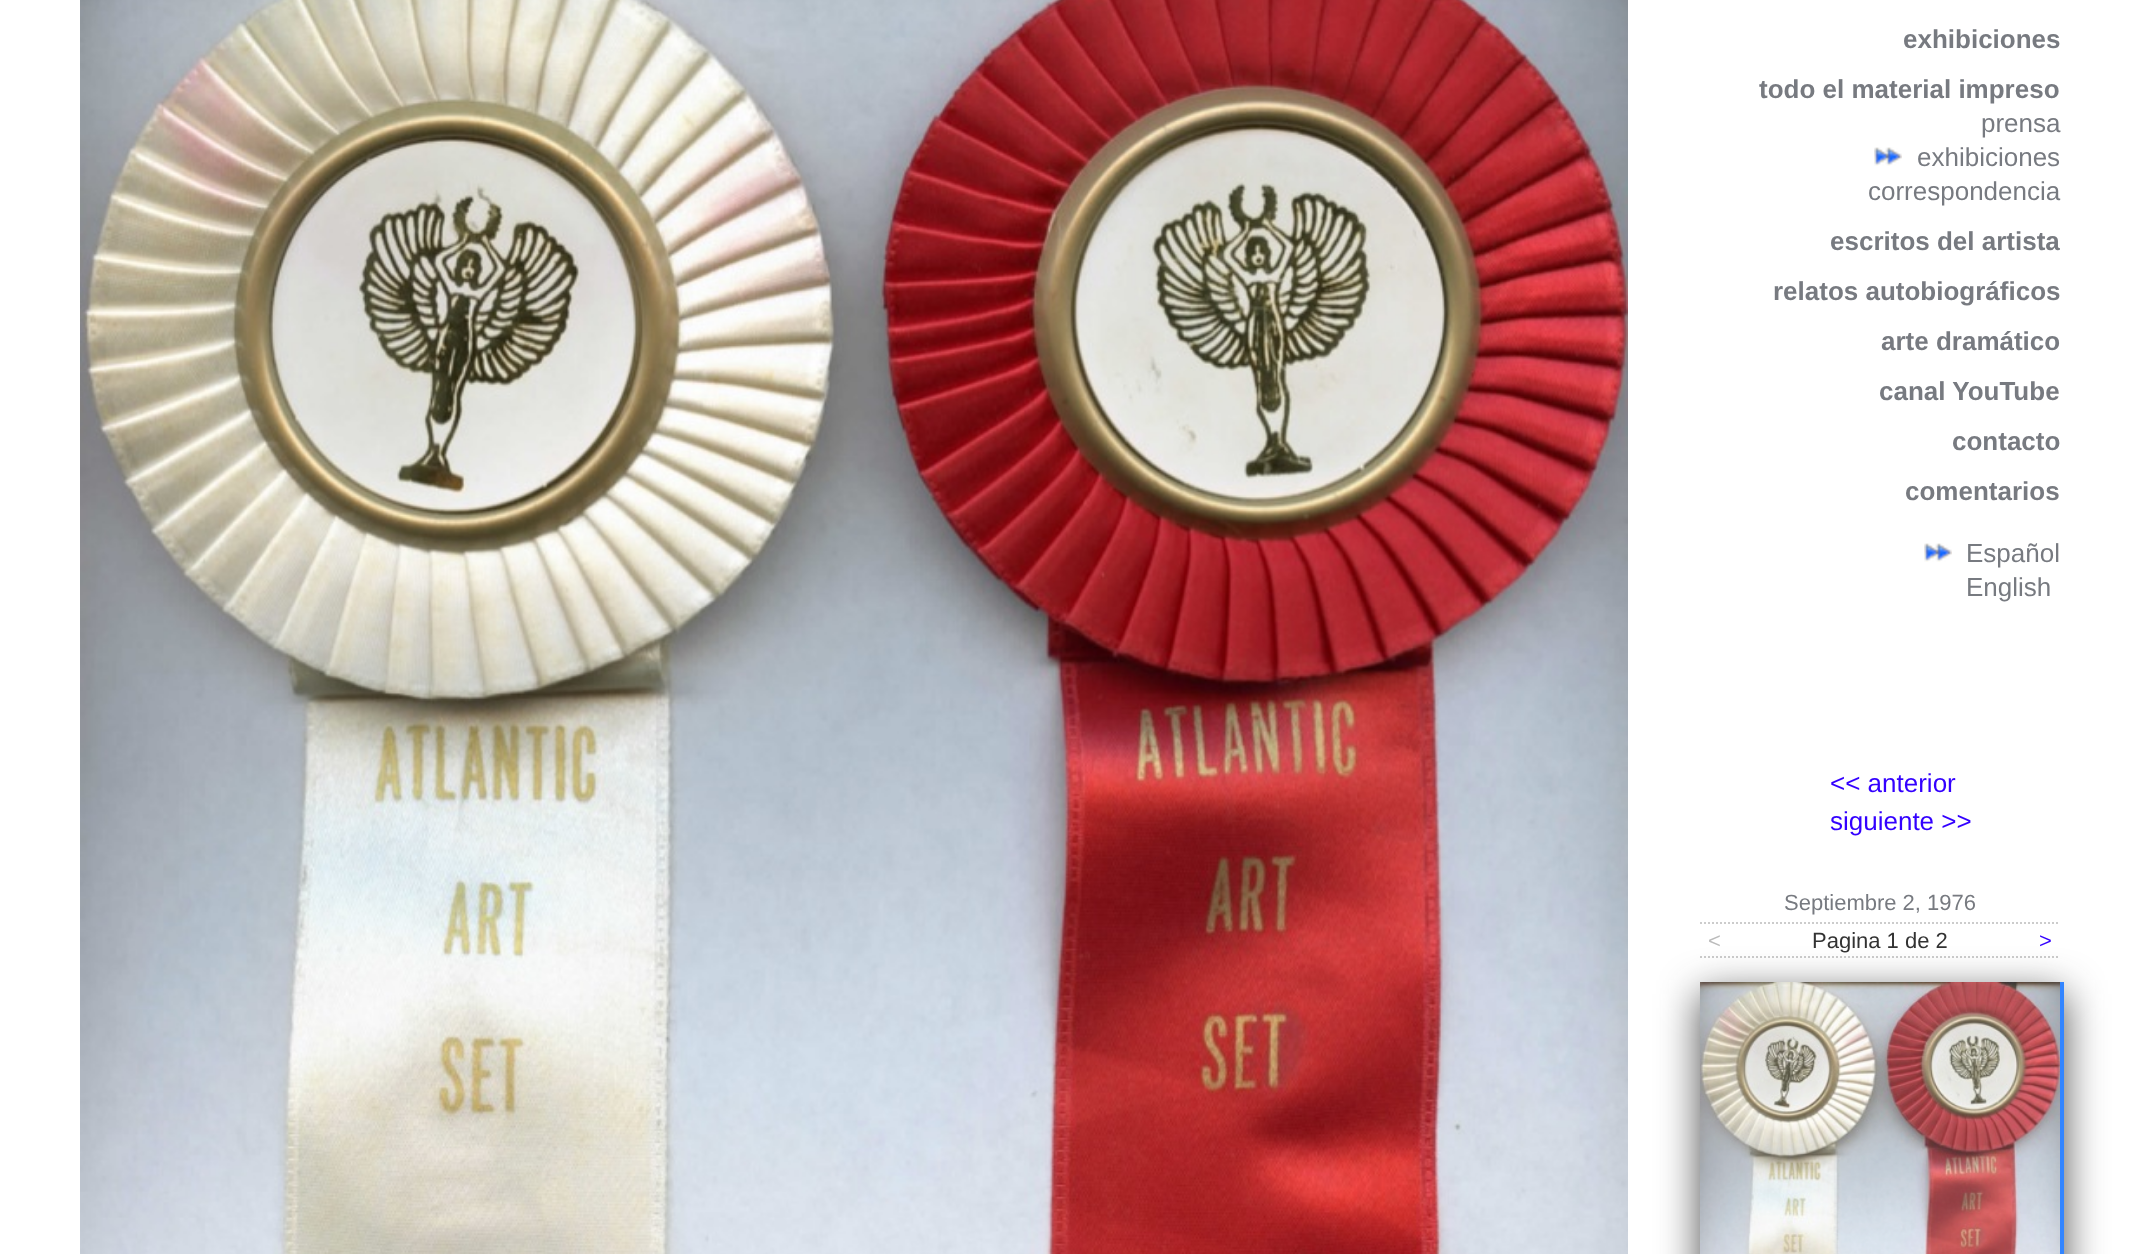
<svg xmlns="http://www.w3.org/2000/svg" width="2140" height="1254">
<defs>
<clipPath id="clip1"><path d="M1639 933h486v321h-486zm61 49h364v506h-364z" clip-rule="evenodd"/></clipPath>
</defs>
<rect width="100%" height="100%" fill="#fff"/>
<image x="80" y="0" width="1548" height="1254" href="media/1.png"/>
<text x="1903" y="48" style="font-family:Liberation Sans;font-size:26px;font-weight:bold;fill:#777a80">exhibiciones</text>
<text x="1759" y="98" style="font-family:Liberation Sans;font-size:26px;font-weight:bold;fill:#777a80">todo el material impreso</text>
<text x="1981" y="132" style="font-family:Liberation Sans;font-size:26px;fill:#777a80">prensa</text>
<image x="1874" y="147" width="28" height="19" href="media/2.png"/>
<text x="1917" y="166" style="font-family:Liberation Sans;font-size:26px;fill:#777a80">exhibiciones</text>
<text x="1868" y="200" style="font-family:Liberation Sans;font-size:26px;fill:#777a80">correspondencia</text>
<text x="1830" y="250" style="font-family:Liberation Sans;font-size:26px;font-weight:bold;fill:#777a80">escritos del artista</text>
<text x="1773" y="300" style="font-family:Liberation Sans;font-size:26px;font-weight:bold;fill:#777a80">relatos autobiográficos</text>
<text x="1881" y="350" style="font-family:Liberation Sans;font-size:26px;font-weight:bold;fill:#777a80">arte dramático</text>
<text x="1879" y="400" style="font-family:Liberation Sans;font-size:26px;font-weight:bold;fill:#777a80">canal YouTube</text>
<text x="1952" y="450" style="font-family:Liberation Sans;font-size:26px;font-weight:bold;fill:#777a80">contacto</text>
<text x="1905" y="500" style="font-family:Liberation Sans;font-size:26px;font-weight:bold;fill:#777a80">comentarios</text>
<image x="1924" y="543" width="28" height="19" href="media/2.png"/>
<text x="1966" y="562" style="font-family:Liberation Sans;font-size:26px;fill:#777a80">Español</text>
<text x="1966" y="596" style="font-family:Liberation Sans;font-size:26px;fill:#777a80">English</text>
<text x="1830" y="792" style="font-family:Liberation Sans;font-size:26px;fill:#30f">&lt;&lt; anterior</text>
<text x="1830" y="830" style="font-family:Liberation Sans;font-size:26px;fill:#30f">siguiente &gt;&gt;</text>
<text x="1784" y="910" style="font-family:Liberation Sans;font-size:22px;fill:#777a80">Septiembre 2, 1976</text>
<path d="M1700 923h360" fill="none" stroke="#ccc" stroke-width="2" stroke-dasharray="2 2"/>
<path d="M1700 957h360" fill="none" stroke="#ccc" stroke-width="2" stroke-dasharray="2 2"/>
<text x="1708" y="948" style="font-family:Liberation Sans;font-size:22px;fill:#bbb">&lt;</text>
<text x="1812" y="948" style="font-family:Liberation Sans;font-size:22px;fill:#333">Pagina 1 de 2</text>
<text x="2039" y="948" style="font-family:Liberation Sans;font-size:22px;fill:#30f">&gt;</text>
<g clip-path="url(#clip1)">
<rect x="1700" y="994" width="364" height="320" fill="#222222cc" filter="blur(20px)"/>
</g>
<image x="1700" y="982" width="360" height="272" href="media/3.png"/>
<path d="M2064 982v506l-4-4v-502z" fill="#3385ff"/>
</svg>
